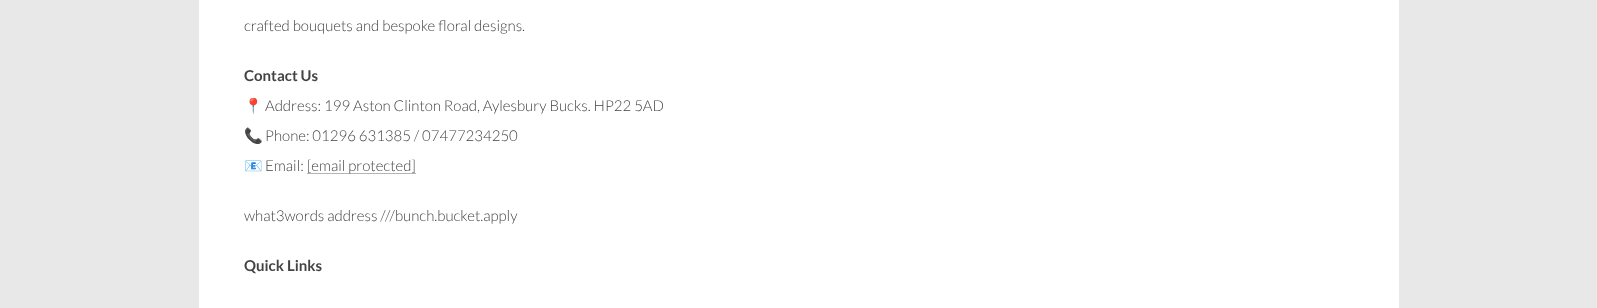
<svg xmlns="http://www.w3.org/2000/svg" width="1597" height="308">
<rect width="100%" height="100%" fill="#e8e8e8"/>
<rect x="199" width="1200" height="308" fill="#fff"/>
<text x="244" y="31" style="font-family:Lato;font-size:15px;font-weight:300;fill:#444">crafted bouquets and bespoke floral designs.</text>
<text x="244" y="81" style="font-family:Lato;font-size:15px;font-weight:bold;fill:#444">Contact Us</text>
<text x="244" y="111" style="font-family:Noto Color Emoji;font-size:15px;fill:#444">📍</text>
<text x="265" y="111" style="font-family:Lato;font-size:15px;font-weight:300;fill:#444">Address: 199 Aston Clinton Road, Aylesbury Bucks. HP22 5AD</text>
<text x="244" y="141" style="font-family:Noto Color Emoji;font-size:15px;fill:#444">📞</text>
<text x="265" y="141" style="font-family:Lato;font-size:15px;font-weight:300;fill:#444">Phone: 01296 631385 / 07477234250</text>
<text x="244" y="171" style="font-family:Noto Color Emoji;font-size:15px;fill:#444">📧</text>
<text x="265" y="171" style="font-family:Lato;font-size:15px;font-weight:300;fill:#444">Email:</text>
<rect x="307" y="173" width="109" height="1" fill="#b4b4b4"/>
<text x="307" y="171" style="font-family:Lato;font-size:15px;font-weight:300;fill:#444">[email protected]</text>
<text x="244" y="221" style="font-family:Lato;font-size:15px;font-weight:300;fill:#444">what3words address ///bunch.bucket.apply</text>
<text x="244" y="271" style="font-family:Lato;font-size:15px;font-weight:bold;fill:#444">Quick Links</text>
</svg>
